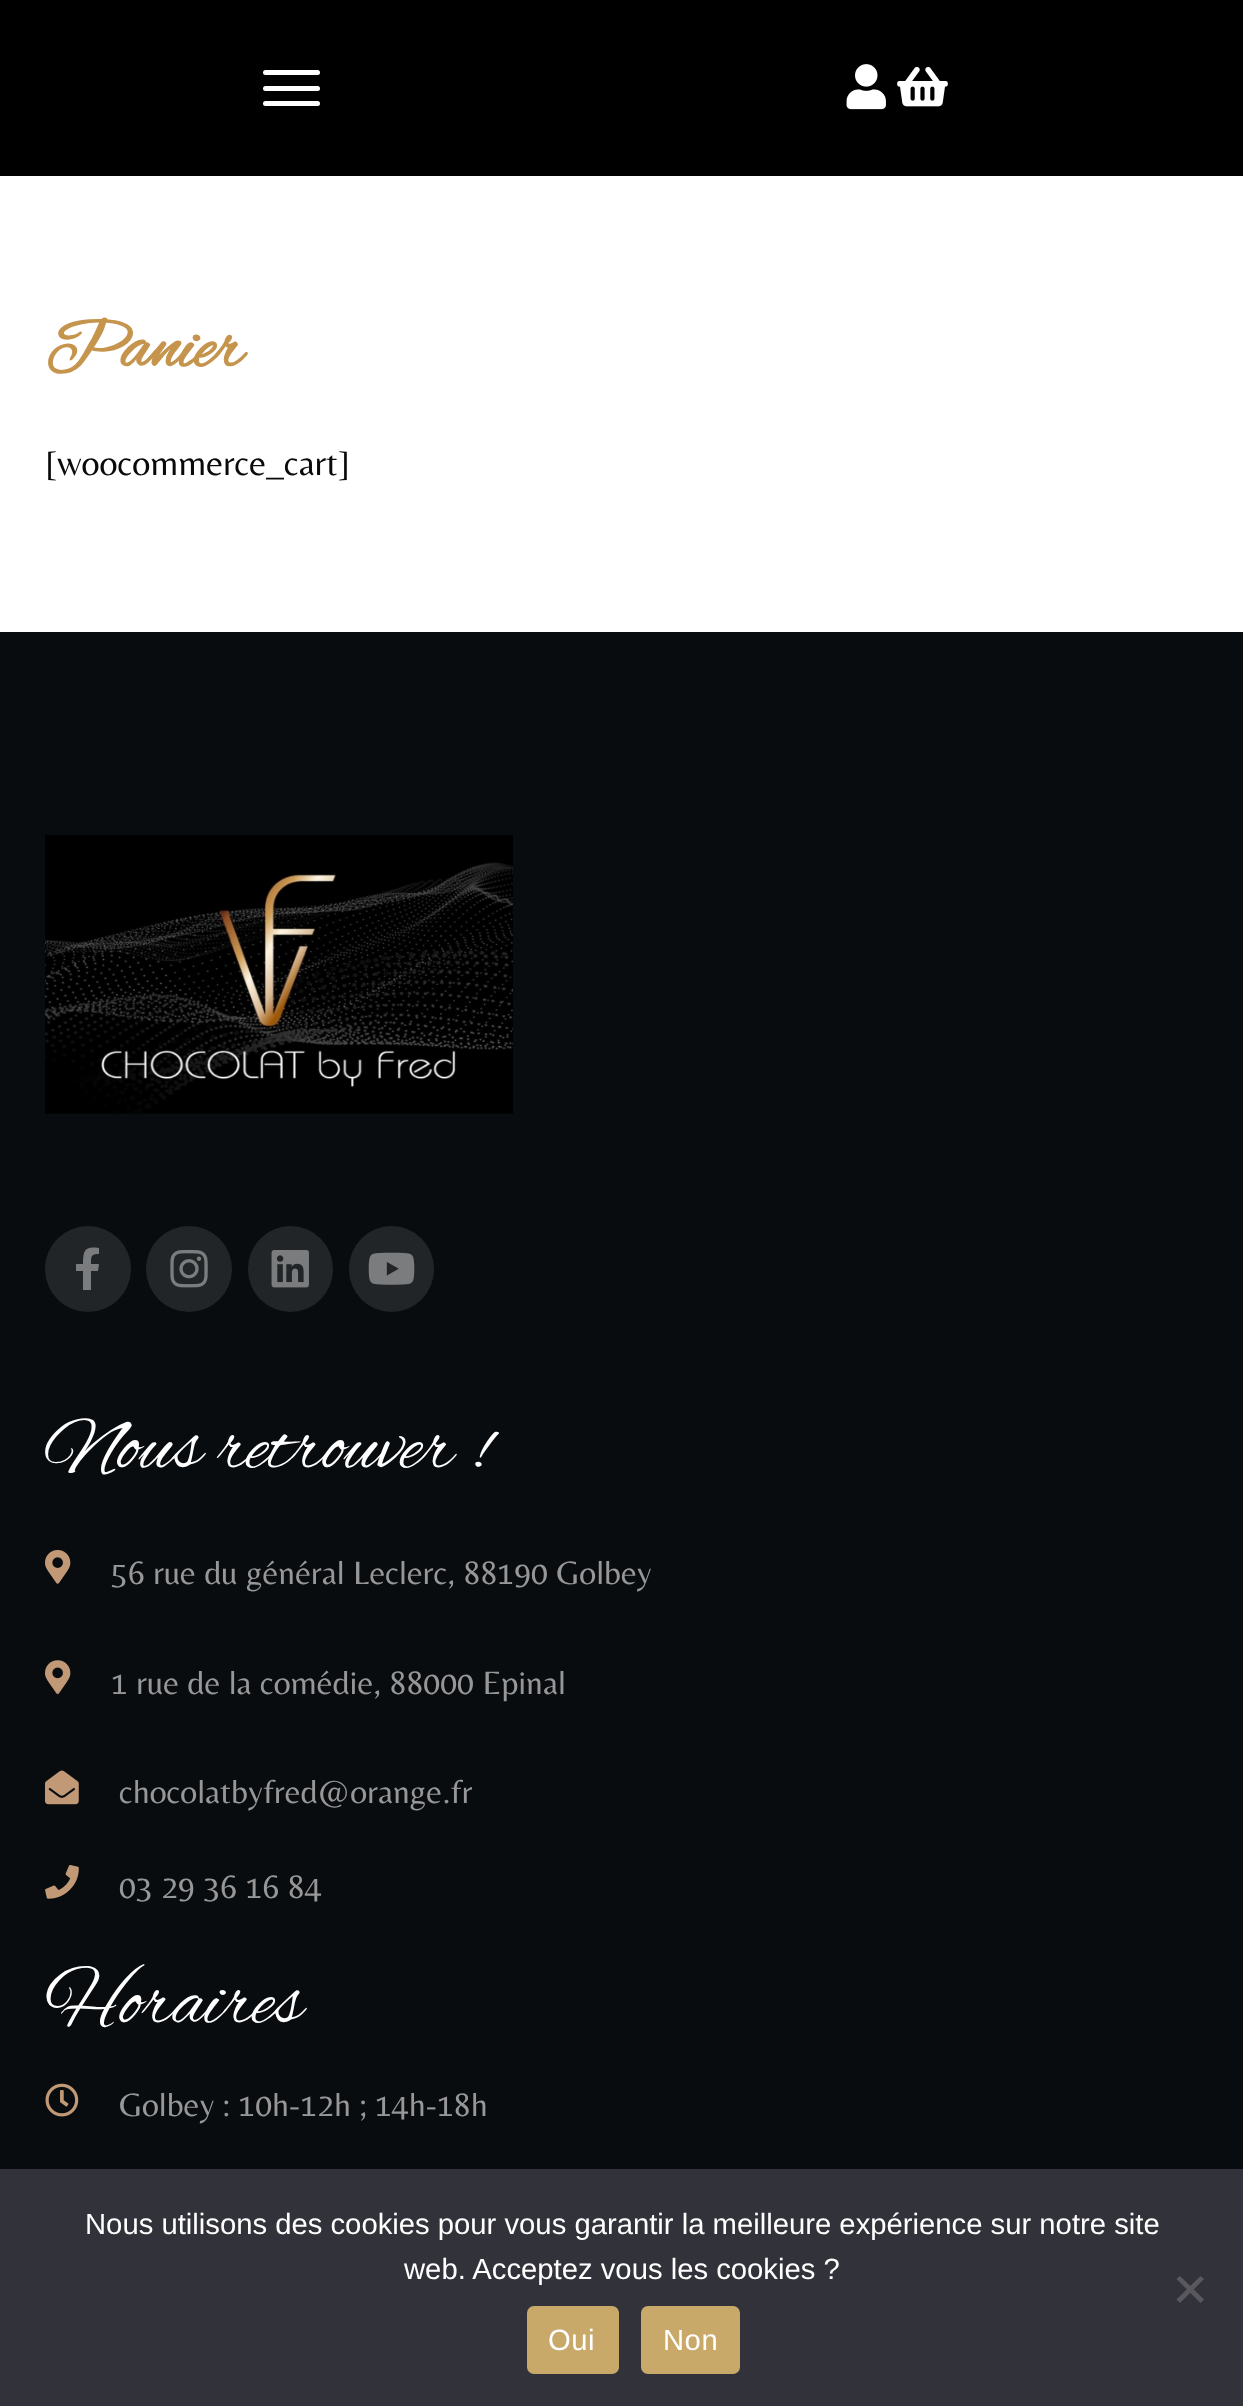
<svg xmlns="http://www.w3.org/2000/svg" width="1243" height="2406">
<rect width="100%" height="100%" fill="#fff"/>
<rect width="1243" height="176" fill="#000"/>
<rect x="263" y="70" width="57" height="5" rx="2.5" fill="#fff"/>
<rect x="263" y="86" width="57" height="5" rx="2.5" fill="#fff"/>
<rect x="263" y="101" width="57" height="5" rx="2.5" fill="#fff"/>
<image x="846" y="64" width="40" height="46" href="media/1.png"/>
<image x="897" y="66" width="51" height="41" href="media/2.png"/>
<text x="45" y="366" style="font-family:Alex Brush;font-size:72px;font-weight:bold;fill:#c5944d">Panier</text>
<text x="45" y="475" style="font-family:Belleza;font-size:36px;fill:#0a0a0a">[woocommerce_cart]</text>
<rect y="632" width="1243" height="1537" fill="#090c0f"/>
<image x="45" y="835" width="468" height="279" href="media/3.png"/>
<circle cx="88" cy="1269" r="43" fill="#222527"/>
<path d="M98 1271h-7v19h-8v-19h-7v-7h7c0-14 2-18 16-16v6c-8 0-8 2-8 10h8z" fill="#7a7c7d"/>
<circle cx="189" cy="1269" r="43" fill="#222527"/>
<image x="170" y="1249" width="38" height="39" href="media/4.png"/>
<rect x="248" y="1226" width="85" height="86" rx="42.5" fill="#222527"/>
<image x="271" y="1250" width="38" height="38" href="media/5.png"/>
<rect x="349" y="1226" width="85" height="86" rx="42.5" fill="#222527"/>
<image x="368" y="1252" width="47" height="33" href="media/6.png"/>
<text x="45" y="1467" style="font-family:Alex Brush;font-size:78.75px;fill:#fff">Nous retrouver !</text>
<image x="45" y="1550" width="26" height="34" href="media/7.png"/>
<text x="111" y="1584" style="font-family:Belleza;font-size:33.75px;fill:#979798">56 rue du général Leclerc, 88190 Golbey</text>
<image x="45" y="1660" width="26" height="34" href="media/8.png"/>
<text x="111" y="1694" style="font-family:Belleza;font-size:33.75px;fill:#979798">1 rue de la comédie, 88000 Epinal</text>
<image x="45" y="1770" width="34" height="35" href="media/9.png"/>
<text x="119" y="1803" style="font-family:Belleza;font-size:33.75px;fill:#979798">chocolatbyfred@orange.fr</text>
<image x="45" y="1865" width="34" height="34" href="media/10.png"/>
<text x="119" y="1898" style="font-family:Belleza;font-size:33.75px;fill:#979798">03 29 36 16 84</text>
<text x="45" y="2022" style="font-family:Alex Brush;font-size:78.75px;fill:#fff">Horaires</text>
<image x="45" y="2083" width="34" height="34" href="media/11.png"/>
<text x="119" y="2116" style="font-family:Belleza;font-size:33.75px;fill:#979798">Golbey : 10h-12h ; 14h-18h</text>
<rect y="2169" width="1243" height="237" fill="#32323a"/>
<text x="85" y="2234" style="font-family:Liberation Sans;font-size:29.25px;fill:#fff">Nous utilisons des cookies pour vous garantir la meilleure expérience sur notre site</text>
<text x="404" y="2279" style="font-family:Liberation Sans;font-size:29.25px;fill:#fff">web. Acceptez vous les cookies ?</text>
<path d="M1200.5 2276l3.5 3l-24 24l-3.5-3.5z" fill="#59595d"/>
<path d="M1176.5 2279l3.5-3l24 23.5l-3.5 3.5z" fill="#59595d"/>
<rect x="527" y="2306" width="92" height="68" rx="7" fill="#c8a96a"/>
<text x="548" y="2350" style="font-family:Liberation Sans;font-size:29.25px;letter-spacing:0.5px;fill:#fff">Oui</text>
<rect x="641" y="2306" width="99" height="68" rx="7" fill="#c8a96a"/>
<text x="663" y="2350" style="font-family:Liberation Sans;font-size:29.25px;letter-spacing:0.5px;fill:#fff">Non</text>
</svg>
